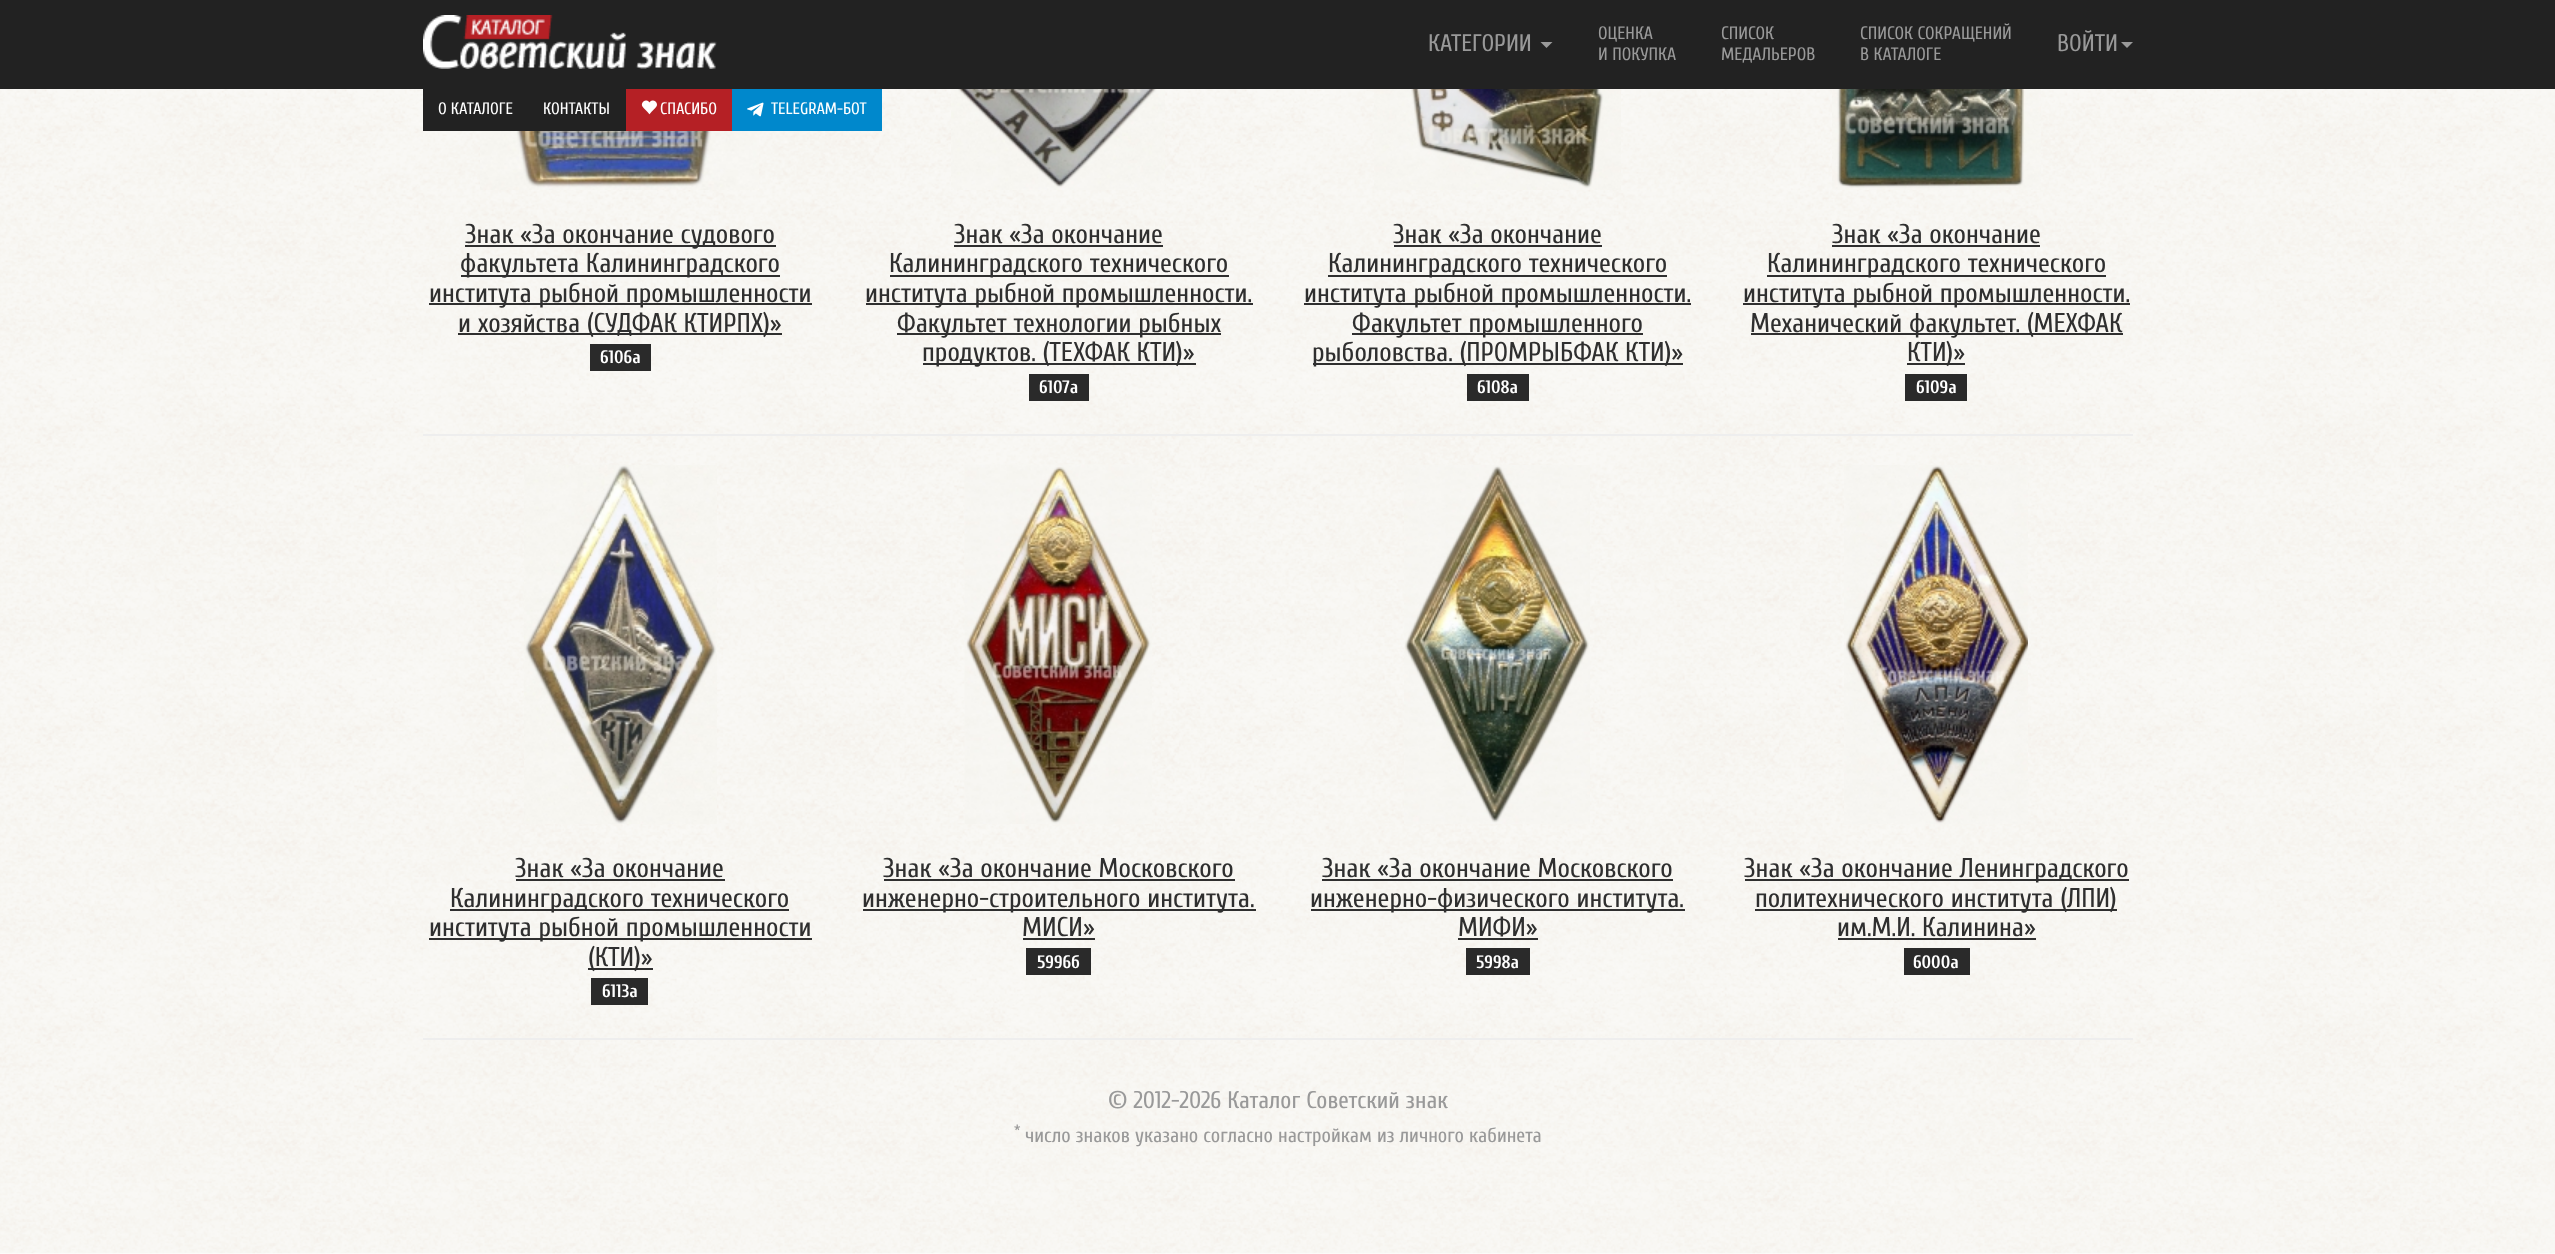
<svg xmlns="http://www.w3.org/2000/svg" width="2555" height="1254">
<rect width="100%" height="100%" fill="#fff"/>
<image x="0" y="89" width="2555" height="1165" href="media/1.png"/>
<rect width="2555" height="89" fill="#222"/>
<image x="423" y="15" width="294" height="54" href="media/2.png"/>
<text x="1428" y="51" style="font-family:Cuprum;font-size:24px;fill:#999">КАТЕГОРИИ</text>
<path d="M1540.5 42h12l-6 6z" fill="#999"/>
<text x="1598" y="39" style="font-family:Cuprum;font-size:18px;fill:#999">ОЦЕНКА</text>
<text x="1598" y="60" style="font-family:Cuprum;font-size:18px;fill:#999">И ПОКУПКА</text>
<text x="1721" y="39" style="font-family:Cuprum;font-size:18px;fill:#999">СПИСОК</text>
<text x="1721" y="60" style="font-family:Cuprum;font-size:18px;fill:#999">МЕДАЛЬЕРОВ</text>
<text x="1860" y="39" style="font-family:Cuprum;font-size:18px;fill:#999">СПИСОК СОКРАЩЕНИЙ</text>
<text x="1860" y="60" style="font-family:Cuprum;font-size:18px;fill:#999">В КАТАЛОГЕ</text>
<text x="2057" y="51" style="font-family:Cuprum;font-size:24px;fill:#999">ВОЙТИ</text>
<path d="M2121 42h12l-6 6z" fill="#999"/>
<rect x="423" y="89" width="203" height="42" fill="#222"/>
<text x="438" y="114" style="font-family:Cuprum;font-size:16.5px;fill:#fff">О КАТАЛОГЕ</text>
<text x="543" y="114" style="font-family:Cuprum;font-size:16.5px;fill:#fff">КОНТАКТЫ</text>
<rect x="626" y="89" width="106" height="42" fill="#b52025"/>
<image x="641" y="100" width="16" height="15" href="media/3.png"/>
<text x="660" y="114" style="font-family:Cuprum;font-size:16.5px;fill:#fff">СПАСИБО</text>
<rect x="732" y="89" width="150" height="42" fill="#08c"/>
<image x="747" y="102" width="17" height="15" href="media/4.png"/>
<text x="771" y="114" style="font-family:Cuprum;font-size:16.5px;fill:#fff">TELEGRAM-БОТ</text>
<image x="480" y="131" width="279" height="59" href="media/5.png"/>
<rect x="465" y="245" width="311" height="2" fill="#2f2f2f"/>
<text x="465" y="243" style="font-family:Cuprum;font-size:27px;fill:#2f2f2f">Знак «За окончание судового</text>
<rect x="461" y="275" width="319" height="2" fill="#2f2f2f"/>
<text x="460" y="272" style="font-family:Cuprum;font-size:27px;fill:#2f2f2f">факультета Калининградского</text>
<rect x="429" y="303" width="383" height="2" fill="#2f2f2f"/>
<text x="429" y="302" style="font-family:Cuprum;font-size:27px;fill:#2f2f2f">института рыбной промышленности</text>
<rect x="458" y="333" width="324" height="2" fill="#2f2f2f"/>
<text x="458" y="332" style="font-family:Cuprum;font-size:27px;fill:#2f2f2f">и хозяйства (СУДФАК КТИРПХ)»</text>
<rect x="590" y="344" width="61" height="27" fill="#2a2a2a"/>
<text x="600" y="363" style="font-family:Cuprum;font-size:18px;font-weight:bold;fill:#fff">6106а</text>
<image x="951" y="89" width="214" height="101" href="media/6.png"/>
<text x="954" y="243" style="font-family:Cuprum;font-size:27px;fill:#2f2f2f">Знак «За окончание</text>
<rect x="954" y="245" width="209" height="2" fill="#2f2f2f"/>
<rect x="890" y="275" width="339" height="2" fill="#2f2f2f"/>
<text x="889" y="272" style="font-family:Cuprum;font-size:27px;fill:#2f2f2f">Калининградского технического</text>
<rect x="866" y="303" width="387" height="2" fill="#2f2f2f"/>
<text x="865" y="302" style="font-family:Cuprum;font-size:27px;fill:#2f2f2f">института рыбной промышленности.</text>
<rect x="897" y="333" width="324" height="2" fill="#2f2f2f"/>
<text x="897" y="332" style="font-family:Cuprum;font-size:27px;fill:#2f2f2f">Факультет технологии рыбных</text>
<rect x="923" y="363" width="273" height="2" fill="#2f2f2f"/>
<text x="922" y="361" style="font-family:Cuprum;font-size:27px;fill:#2f2f2f">продуктов. (ТЕХФАК КТИ)»</text>
<rect x="1029" y="374" width="60" height="27" fill="#2a2a2a"/>
<text x="1039" y="393" style="font-family:Cuprum;font-size:18px;font-weight:bold;fill:#fff">6107а</text>
<image x="1374" y="89" width="247" height="101" href="media/7.png"/>
<text x="1393" y="243" style="font-family:Cuprum;font-size:27px;fill:#2f2f2f">Знак «За окончание</text>
<rect x="1394" y="245" width="208" height="2" fill="#2f2f2f"/>
<rect x="1328" y="275" width="339" height="2" fill="#2f2f2f"/>
<text x="1328" y="272" style="font-family:Cuprum;font-size:27px;fill:#2f2f2f">Калининградского технического</text>
<rect x="1304" y="303" width="387" height="2" fill="#2f2f2f"/>
<text x="1304" y="302" style="font-family:Cuprum;font-size:27px;fill:#2f2f2f">института рыбной промышленности.</text>
<rect x="1352" y="333" width="291" height="2" fill="#2f2f2f"/>
<text x="1352" y="332" style="font-family:Cuprum;font-size:27px;fill:#2f2f2f">Факультет промышленного</text>
<rect x="1313" y="363" width="370" height="2" fill="#2f2f2f"/>
<text x="1312" y="361" style="font-family:Cuprum;font-size:27px;fill:#2f2f2f">рыболовства. (ПРОМРЫБФАК КТИ)»</text>
<rect x="1467" y="374" width="62" height="27" fill="#2a2a2a"/>
<text x="1477" y="393" style="font-family:Cuprum;font-size:18px;font-weight:bold;fill:#fff">6108а</text>
<image x="1832" y="89" width="209" height="101" href="media/8.png"/>
<text x="1832" y="243" style="font-family:Cuprum;font-size:27px;fill:#2f2f2f">Знак «За окончание</text>
<rect x="1832" y="245" width="208" height="2" fill="#2f2f2f"/>
<rect x="1767" y="275" width="339" height="2" fill="#2f2f2f"/>
<text x="1767" y="272" style="font-family:Cuprum;font-size:27px;fill:#2f2f2f">Калининградского технического</text>
<rect x="1743" y="303" width="387" height="2" fill="#2f2f2f"/>
<text x="1743" y="302" style="font-family:Cuprum;font-size:27px;fill:#2f2f2f">института рыбной промышленности.</text>
<rect x="1751" y="333" width="372" height="2" fill="#2f2f2f"/>
<text x="1750" y="332" style="font-family:Cuprum;font-size:27px;fill:#2f2f2f">Механический факультет. (МЕХФАК</text>
<rect x="1907" y="363" width="58" height="2" fill="#2f2f2f"/>
<text x="1907" y="361" style="font-family:Cuprum;font-size:27px;fill:#2f2f2f">КТИ)»</text>
<rect x="1905" y="374" width="62" height="27" fill="#2a2a2a"/>
<text x="1916" y="393" style="font-family:Cuprum;font-size:18px;font-weight:bold;fill:#fff">6109а</text>
<rect x="423" y="434" width="1710" height="2" fill="#eee"/>
<image x="524" y="465" width="193" height="359" href="media/9.png"/>
<text x="515" y="877" style="font-family:Cuprum;font-size:27px;fill:#2f2f2f">Знак «За окончание</text>
<rect x="516" y="879" width="209" height="2" fill="#2f2f2f"/>
<rect x="450" y="909" width="339" height="2" fill="#2f2f2f"/>
<text x="450" y="907" style="font-family:Cuprum;font-size:27px;fill:#2f2f2f">Калининградского технического</text>
<rect x="429" y="938" width="383" height="2" fill="#2f2f2f"/>
<text x="429" y="936" style="font-family:Cuprum;font-size:27px;fill:#2f2f2f">института рыбной промышленности</text>
<rect x="588" y="968" width="65" height="2" fill="#2f2f2f"/>
<text x="588" y="966" style="font-family:Cuprum;font-size:27px;fill:#2f2f2f">(КТИ)»</text>
<rect x="591" y="978" width="57" height="27" fill="#2a2a2a"/>
<text x="602" y="997" style="font-family:Cuprum;font-size:18px;font-weight:bold;fill:#fff">6113а</text>
<image x="964" y="464" width="188" height="360" href="media/10.png"/>
<text x="883" y="877" style="font-family:Cuprum;font-size:27px;fill:#2f2f2f">Знак «За окончание Московского</text>
<rect x="884" y="879" width="351" height="2" fill="#2f2f2f"/>
<rect x="863" y="909" width="393" height="2" fill="#2f2f2f"/>
<text x="862" y="907" style="font-family:Cuprum;font-size:27px;fill:#2f2f2f">инженерно-строительного института.</text>
<text x="1022" y="936" style="font-family:Cuprum;font-size:27px;fill:#2f2f2f">МИСИ»</text>
<rect x="1023" y="938" width="72" height="2" fill="#2f2f2f"/>
<rect x="1026" y="948" width="65" height="27" fill="#2a2a2a"/>
<text x="1037" y="968" style="font-family:Cuprum;font-size:18px;font-weight:bold;fill:#fff">5996б</text>
<image x="1404" y="465" width="186" height="359" href="media/11.png"/>
<text x="1322" y="877" style="font-family:Cuprum;font-size:27px;fill:#2f2f2f">Знак «За окончание Московского</text>
<rect x="1322" y="879" width="351" height="2" fill="#2f2f2f"/>
<rect x="1311" y="909" width="374" height="2" fill="#2f2f2f"/>
<text x="1310" y="907" style="font-family:Cuprum;font-size:27px;fill:#2f2f2f">инженерно-физического института.</text>
<text x="1458" y="936" style="font-family:Cuprum;font-size:27px;fill:#2f2f2f">МИФИ»</text>
<rect x="1458" y="938" width="80" height="2" fill="#2f2f2f"/>
<rect x="1466" y="948" width="64" height="27" fill="#2a2a2a"/>
<text x="1476" y="968" style="font-family:Cuprum;font-size:18px;font-weight:bold;fill:#fff">5998а</text>
<image x="1844" y="465" width="184" height="359" href="media/12.png"/>
<rect x="1745" y="879" width="384" height="2" fill="#2f2f2f"/>
<text x="1744" y="877" style="font-family:Cuprum;font-size:27px;fill:#2f2f2f">Знак «За окончание Ленинградского</text>
<rect x="1755" y="909" width="362" height="2" fill="#2f2f2f"/>
<text x="1755" y="907" style="font-family:Cuprum;font-size:27px;fill:#2f2f2f">политехнического института (ЛПИ)</text>
<text x="1837" y="936" style="font-family:Cuprum;font-size:27px;fill:#2f2f2f">им.М.И. Калинина»</text>
<rect x="1838" y="938" width="198" height="2" fill="#2f2f2f"/>
<rect x="1904" y="948" width="66" height="27" fill="#2a2a2a"/>
<text x="1913" y="968" style="font-family:Cuprum;font-size:18px;font-weight:bold;fill:#fff">6000а</text>
<rect x="423" y="1038" width="1710" height="2" fill="#eee"/>
<text x="1108" y="1108" style="font-family:Cuprum;font-size:24px;fill:#999">© 2012-2026 Каталог Советский знак</text>
<text x="1014" y="1135" style="font-family:Cuprum;font-size:15px;fill:#999">*</text>
<text x="1025" y="1142" style="font-family:Cuprum;font-size:20.4px;fill:#999">число знаков указано согласно настройкам из личного кабинета</text>
</svg>
